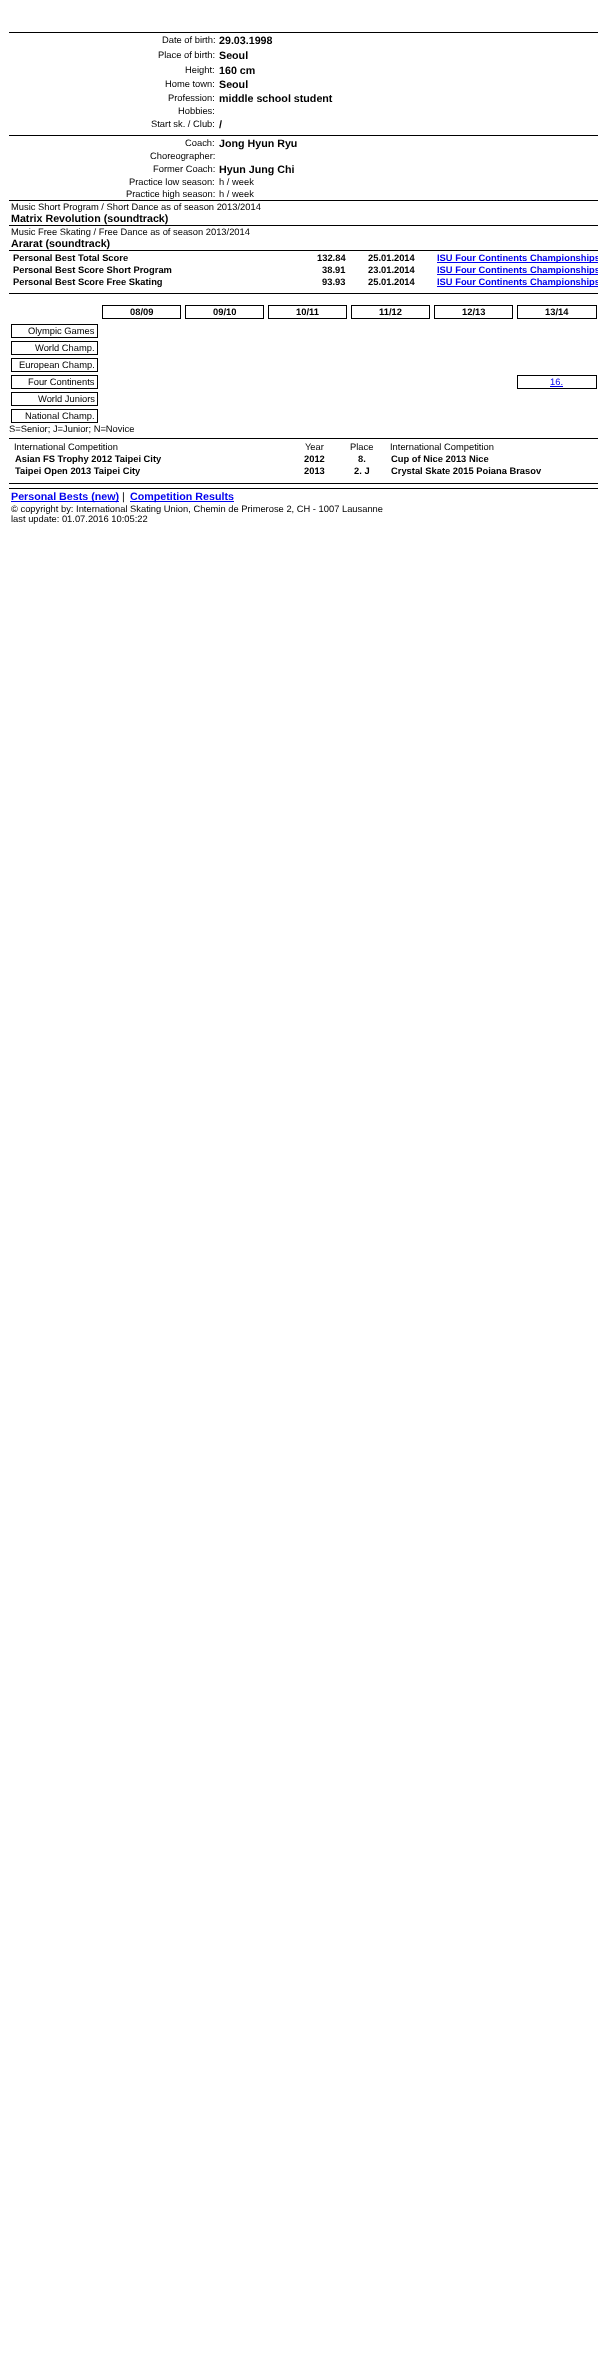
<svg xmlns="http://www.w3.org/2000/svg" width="598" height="2374">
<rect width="100%" height="100%" fill="#fff"/>
<rect x="9" y="32" width="589" height="1" fill="#000"/>
<text x="162" y="43" style="font-family:Liberation Sans;font-size:9.35px;fill:#000">Date of birth:</text>
<text x="219" y="44" style="font-family:Liberation Sans;font-size:10.7px;font-weight:bold;fill:#000">29.03.1998</text>
<text x="158" y="58" style="font-family:Liberation Sans;font-size:9.35px;fill:#000">Place of birth:</text>
<text x="219" y="59" style="font-family:Liberation Sans;font-size:10.7px;font-weight:bold;fill:#000">Seoul</text>
<text x="185" y="73" style="font-family:Liberation Sans;font-size:9.35px;fill:#000">Height:</text>
<text x="219" y="74" style="font-family:Liberation Sans;font-size:10.7px;font-weight:bold;fill:#000">160 cm</text>
<text x="165" y="87" style="font-family:Liberation Sans;font-size:9.35px;fill:#000">Home town:</text>
<text x="219" y="88" style="font-family:Liberation Sans;font-size:10.7px;font-weight:bold;fill:#000">Seoul</text>
<text x="168" y="101" style="font-family:Liberation Sans;font-size:9.35px;fill:#000">Profession:</text>
<text x="219" y="102" style="font-family:Liberation Sans;font-size:10.7px;font-weight:bold;fill:#000">middle school student</text>
<text x="178" y="114" style="font-family:Liberation Sans;font-size:9.35px;fill:#000">Hobbies:</text>
<text x="151" y="127" style="font-family:Liberation Sans;font-size:9.35px;fill:#000">Start sk. / Club:</text>
<text x="219" y="128" style="font-family:Liberation Sans;font-size:10.7px;font-weight:bold;fill:#000">/</text>
<rect x="9" y="135" width="589" height="1" fill="#000"/>
<text x="185" y="146" style="font-family:Liberation Sans;font-size:9.35px;fill:#000">Coach:</text>
<text x="219" y="147" style="font-family:Liberation Sans;font-size:10.7px;font-weight:bold;fill:#000">Jong Hyun Ryu</text>
<text x="150" y="159" style="font-family:Liberation Sans;font-size:9.35px;fill:#000">Choreographer:</text>
<text x="153" y="172" style="font-family:Liberation Sans;font-size:9.35px;fill:#000">Former Coach:</text>
<text x="219" y="173" style="font-family:Liberation Sans;font-size:10.7px;font-weight:bold;fill:#000">Hyun Jung Chi</text>
<text x="129" y="185" style="font-family:Liberation Sans;font-size:9.35px;fill:#000">Practice low season:</text>
<text x="219" y="185" style="font-family:Liberation Sans;font-size:9.35px;fill:#000">h / week</text>
<text x="126" y="197" style="font-family:Liberation Sans;font-size:9.35px;fill:#000">Practice high season:</text>
<rect x="9" y="200" width="589" height="1" fill="#000"/>
<text x="219" y="197" style="font-family:Liberation Sans;font-size:9.35px;fill:#000">h / week</text>
<text x="11" y="210" style="font-family:Liberation Sans;font-size:9.35px;fill:#000">Music Short Program / Short Dance as of season 2013/2014</text>
<rect x="9" y="225" width="589" height="1" fill="#000"/>
<text x="11" y="222" style="font-family:Liberation Sans;font-size:10.7px;font-weight:bold;fill:#000">Matrix Revolution (soundtrack)</text>
<text x="11" y="235" style="font-family:Liberation Sans;font-size:9.35px;fill:#000">Music Free Skating / Free Dance as of season 2013/2014</text>
<rect x="9" y="250" width="589" height="1" fill="#000"/>
<text x="11" y="247" style="font-family:Liberation Sans;font-size:10.7px;font-weight:bold;fill:#000">Ararat (soundtrack)</text>
<text x="13" y="261" style="font-family:Liberation Sans;font-size:9.35px;font-weight:bold;fill:#000">Personal Best Total Score</text>
<text x="317" y="261" style="font-family:Liberation Sans;font-size:9.35px;font-weight:bold;fill:#000">132.84</text>
<text x="368" y="261" style="font-family:Liberation Sans;font-size:9.35px;font-weight:bold;fill:#000">25.01.2014</text>
<rect x="437" y="262" width="161" height="1" fill="#00e"/>
<text x="437" y="261" style="font-family:Liberation Sans;font-size:9.35px;font-weight:bold;fill:#00e">ISU Four Continents Championships</text>
<text x="13" y="273" style="font-family:Liberation Sans;font-size:9.35px;font-weight:bold;fill:#000">Personal Best Score Short Program</text>
<text x="322" y="273" style="font-family:Liberation Sans;font-size:9.35px;font-weight:bold;fill:#000">38.91</text>
<text x="368" y="273" style="font-family:Liberation Sans;font-size:9.35px;font-weight:bold;fill:#000">23.01.2014</text>
<rect x="437" y="274" width="161" height="1" fill="#00e"/>
<text x="437" y="273" style="font-family:Liberation Sans;font-size:9.35px;font-weight:bold;fill:#00e">ISU Four Continents Championships</text>
<text x="13" y="285" style="font-family:Liberation Sans;font-size:9.35px;font-weight:bold;fill:#000">Personal Best Score Free Skating</text>
<text x="322" y="285" style="font-family:Liberation Sans;font-size:9.35px;font-weight:bold;fill:#000">93.93</text>
<text x="368" y="285" style="font-family:Liberation Sans;font-size:9.35px;font-weight:bold;fill:#000">25.01.2014</text>
<rect x="437" y="286" width="161" height="1" fill="#00e"/>
<text x="437" y="285" style="font-family:Liberation Sans;font-size:9.35px;font-weight:bold;fill:#00e">ISU Four Continents Championships</text>
<rect x="9" y="293" width="589" height="1" fill="#000"/>
<rect x="102" y="305" width="79" height="1" fill="#000"/>
<rect x="180" y="305" width="1" height="14" fill="#000"/>
<rect x="102" y="318" width="79" height="1" fill="#000"/>
<rect x="102" y="305" width="1" height="14" fill="#000"/>
<text x="130" y="315" style="font-family:Liberation Sans;font-size:9.35px;font-weight:bold;fill:#000">08/09</text>
<rect x="185" y="305" width="79" height="1" fill="#000"/>
<rect x="263" y="305" width="1" height="14" fill="#000"/>
<rect x="185" y="318" width="79" height="1" fill="#000"/>
<rect x="185" y="305" width="1" height="14" fill="#000"/>
<text x="213" y="315" style="font-family:Liberation Sans;font-size:9.35px;font-weight:bold;fill:#000">09/10</text>
<rect x="268" y="305" width="79" height="1" fill="#000"/>
<rect x="346" y="305" width="1" height="14" fill="#000"/>
<rect x="268" y="318" width="79" height="1" fill="#000"/>
<rect x="268" y="305" width="1" height="14" fill="#000"/>
<text x="296" y="315" style="font-family:Liberation Sans;font-size:9.35px;font-weight:bold;fill:#000">10/11</text>
<rect x="351" y="305" width="79" height="1" fill="#000"/>
<rect x="429" y="305" width="1" height="14" fill="#000"/>
<rect x="351" y="318" width="79" height="1" fill="#000"/>
<rect x="351" y="305" width="1" height="14" fill="#000"/>
<text x="379" y="315" style="font-family:Liberation Sans;font-size:9.35px;font-weight:bold;fill:#000">11/12</text>
<rect x="434" y="305" width="79" height="1" fill="#000"/>
<rect x="512" y="305" width="1" height="14" fill="#000"/>
<rect x="434" y="318" width="79" height="1" fill="#000"/>
<rect x="434" y="305" width="1" height="14" fill="#000"/>
<text x="462" y="315" style="font-family:Liberation Sans;font-size:9.35px;font-weight:bold;fill:#000">12/13</text>
<rect x="517" y="305" width="80" height="1" fill="#000"/>
<rect x="596" y="305" width="1" height="14" fill="#000"/>
<rect x="517" y="318" width="80" height="1" fill="#000"/>
<rect x="517" y="305" width="1" height="14" fill="#000"/>
<text x="545" y="315" style="font-family:Liberation Sans;font-size:9.35px;font-weight:bold;fill:#000">13/14</text>
<rect x="11" y="324" width="87" height="1" fill="#000"/>
<rect x="97" y="324" width="1" height="14" fill="#000"/>
<rect x="11" y="337" width="87" height="1" fill="#000"/>
<rect x="11" y="324" width="1" height="14" fill="#000"/>
<text x="28" y="334" style="font-family:Liberation Sans;font-size:9.35px;fill:#000">Olympic Games</text>
<rect x="11" y="341" width="87" height="1" fill="#000"/>
<rect x="97" y="341" width="1" height="14" fill="#000"/>
<rect x="11" y="354" width="87" height="1" fill="#000"/>
<rect x="11" y="341" width="1" height="14" fill="#000"/>
<text x="35" y="351" style="font-family:Liberation Sans;font-size:9.35px;fill:#000">World Champ.</text>
<rect x="11" y="358" width="87" height="1" fill="#000"/>
<rect x="97" y="358" width="1" height="14" fill="#000"/>
<rect x="11" y="371" width="87" height="1" fill="#000"/>
<rect x="11" y="358" width="1" height="14" fill="#000"/>
<text x="19" y="368" style="font-family:Liberation Sans;font-size:9.35px;fill:#000">European Champ.</text>
<rect x="11" y="375" width="87" height="1" fill="#000"/>
<rect x="97" y="375" width="1" height="14" fill="#000"/>
<rect x="11" y="388" width="87" height="1" fill="#000"/>
<rect x="11" y="375" width="1" height="14" fill="#000"/>
<text x="28" y="385" style="font-family:Liberation Sans;font-size:9.35px;fill:#000">Four Continents</text>
<rect x="11" y="392" width="87" height="1" fill="#000"/>
<rect x="97" y="392" width="1" height="14" fill="#000"/>
<rect x="11" y="405" width="87" height="1" fill="#000"/>
<rect x="11" y="392" width="1" height="14" fill="#000"/>
<text x="38" y="402" style="font-family:Liberation Sans;font-size:9.35px;fill:#000">World Juniors</text>
<rect x="11" y="409" width="87" height="1" fill="#000"/>
<rect x="97" y="409" width="1" height="14" fill="#000"/>
<rect x="11" y="422" width="87" height="1" fill="#000"/>
<rect x="11" y="409" width="1" height="14" fill="#000"/>
<text x="25" y="419" style="font-family:Liberation Sans;font-size:9.35px;fill:#000">National Champ.</text>
<rect x="517" y="375" width="80" height="1" fill="#000"/>
<rect x="596" y="375" width="1" height="14" fill="#000"/>
<rect x="517" y="388" width="80" height="1" fill="#000"/>
<rect x="517" y="375" width="1" height="14" fill="#000"/>
<text x="550" y="385" style="font-family:Liberation Sans;font-size:9.35px;fill:#00e">16.</text>
<rect x="550" y="386" width="13" height="1" fill="#00e"/>
<text x="9" y="432" style="font-family:Liberation Sans;font-size:9.35px;fill:#000">S=Senior; J=Junior; N=Novice</text>
<rect x="9" y="438" width="589" height="1" fill="#000"/>
<text x="14" y="450" style="font-family:Liberation Sans;font-size:9.35px;fill:#000">International Competition</text>
<text x="305" y="450" style="font-family:Liberation Sans;font-size:9.35px;fill:#000">Year</text>
<text x="350" y="450" style="font-family:Liberation Sans;font-size:9.35px;fill:#000">Place</text>
<text x="15" y="462" style="font-family:Liberation Sans;font-size:9.35px;font-weight:bold;fill:#000">Asian FS Trophy 2012 Taipei City</text>
<text x="304" y="462" style="font-family:Liberation Sans;font-size:9.35px;font-weight:bold;fill:#000">2012</text>
<text x="358" y="462" style="font-family:Liberation Sans;font-size:9.35px;font-weight:bold;fill:#000">8.</text>
<text x="15" y="474" style="font-family:Liberation Sans;font-size:9.35px;font-weight:bold;fill:#000">Taipei Open 2013 Taipei City</text>
<text x="304" y="474" style="font-family:Liberation Sans;font-size:9.35px;font-weight:bold;fill:#000">2013</text>
<text x="354" y="474" style="font-family:Liberation Sans;font-size:9.35px;font-weight:bold;fill:#000">2. J</text>
<text x="390" y="450" style="font-family:Liberation Sans;font-size:9.35px;fill:#000">International Competition</text>
<text x="391" y="462" style="font-family:Liberation Sans;font-size:9.35px;font-weight:bold;fill:#000">Cup of Nice 2013 Nice</text>
<text x="391" y="474" style="font-family:Liberation Sans;font-size:9.35px;font-weight:bold;fill:#000">Crystal Skate 2015 Poiana Brasov</text>
<rect x="9" y="483" width="589" height="1" fill="#000"/>
<rect x="9" y="488" width="589" height="1" fill="#000"/>
<rect x="11" y="501" width="108" height="1" fill="#00e"/>
<text x="11" y="500" style="font-family:Liberation Sans;font-size:10.7px;font-weight:bold;fill:#00e">Personal Bests (new)</text>
<text x="122" y="500" style="font-family:Liberation Sans;font-size:10.7px;fill:#000">|</text>
<rect x="130" y="501" width="104" height="1" fill="#00e"/>
<text x="130" y="500" style="font-family:Liberation Sans;font-size:10.7px;font-weight:bold;fill:#00e">Competition Results</text>
<text x="11" y="512" style="font-family:Liberation Sans;font-size:9.35px;fill:#000">© copyright by: International Skating Union, Chemin de Primerose 2, CH - 1007 Lausanne</text>
<text x="11" y="522" style="font-family:Liberation Sans;font-size:9.35px;fill:#000">last update: 01.07.2016 10:05:22</text>
</svg>
